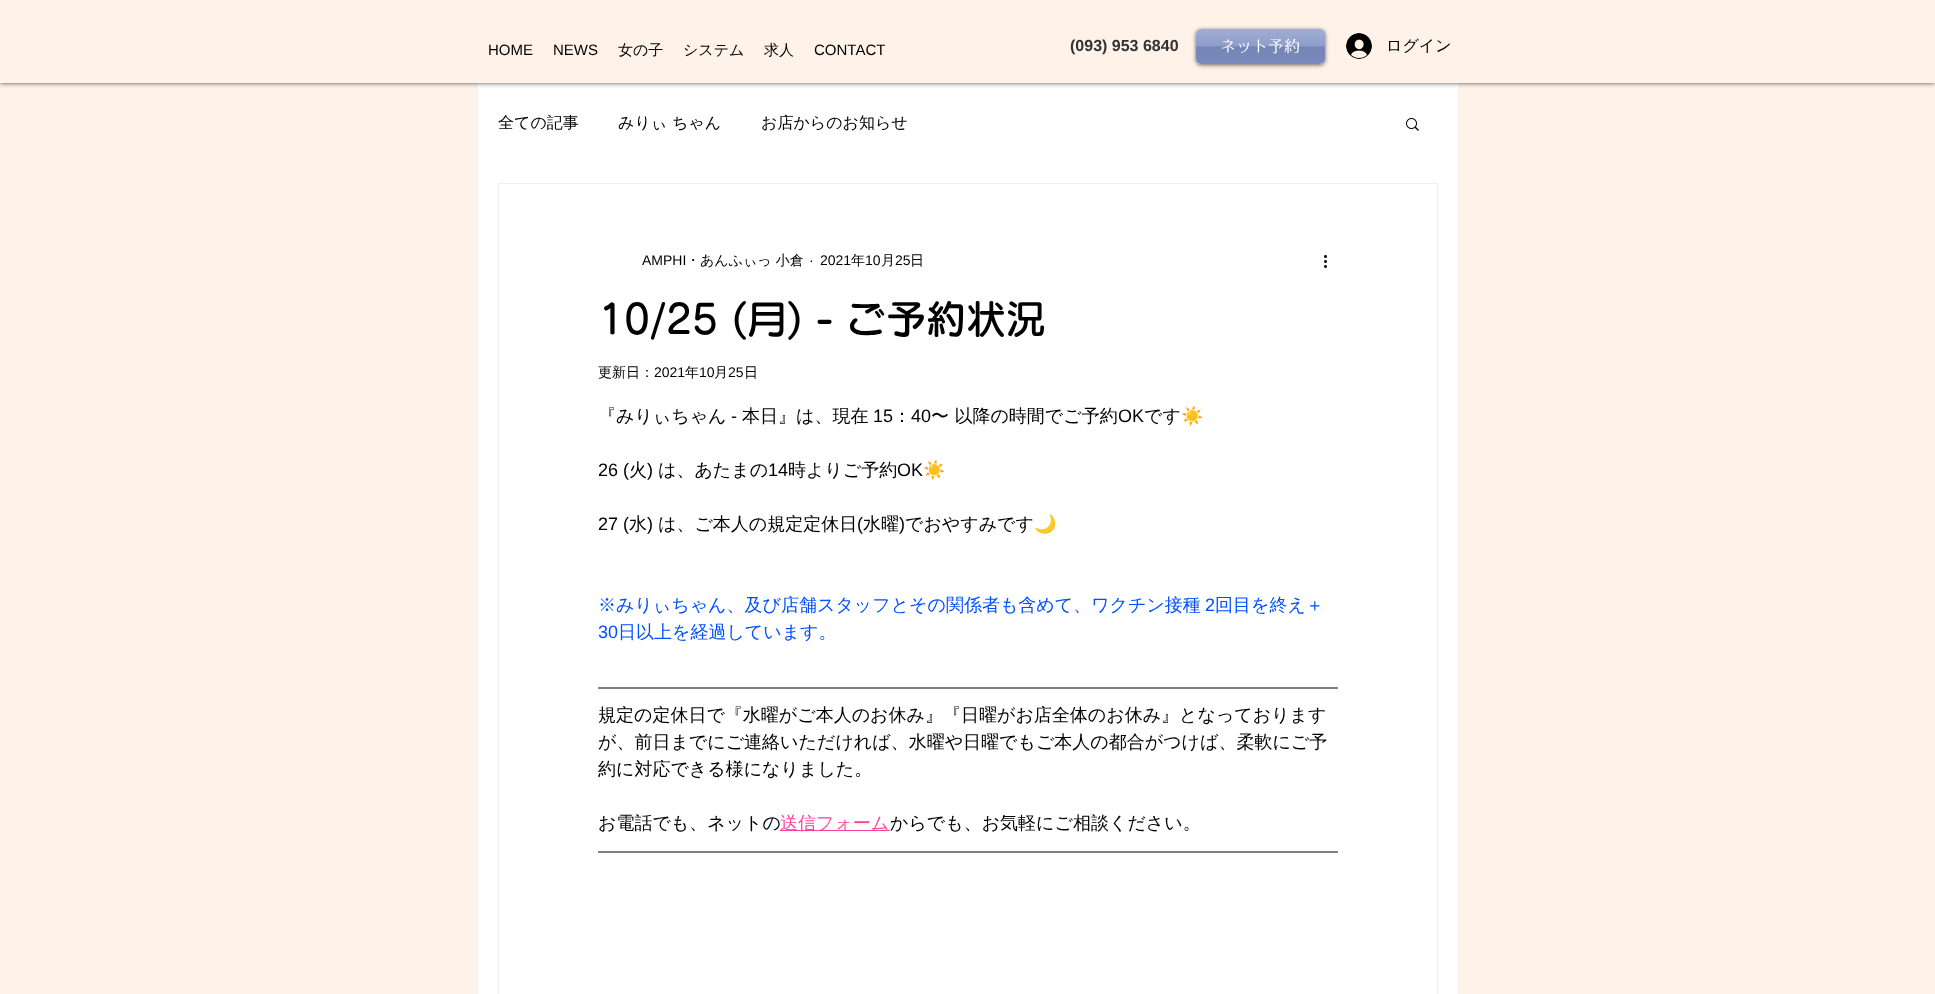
<svg xmlns="http://www.w3.org/2000/svg" width="1935" height="994">
<defs>
<clipPath id="clip1"><rect x="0" y="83" width="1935" height="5"/></clipPath>
<clipPath id="clip2"><path d="M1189 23h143v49h-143zm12 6h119c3 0 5 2 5 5v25c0 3-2 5-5 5h-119c-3 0-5-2-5-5v-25c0-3 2-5 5-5z" clip-rule="evenodd"/></clipPath>
</defs>
<rect width="100%" height="100%" fill="#fff2e8"/>
<rect x="478" y="83" width="980" height="911" fill="#fff"/>
<g clip-path="url(#clip1)">
<rect width="1935" height="83" fill="#000000b3" filter="blur(2.5px)"/>
</g>
<text x="488" y="55" style="font-family:Liberation Sans;font-size:15px;fill:#000">HOME</text>
<text x="553" y="55" style="font-family:Liberation Sans;font-size:15px;fill:#000">NEWS</text>
<text x="618" y="55" style="font-family:WenQuanYi Zen Hei;font-size:15px;font-weight:500;fill:#000">女の子</text>
<text x="683" y="55" style="font-family:WenQuanYi Zen Hei;font-size:15px;font-weight:500;fill:#000">システム</text>
<text x="764" y="55" style="font-family:WenQuanYi Zen Hei;font-size:15px;font-weight:500;fill:#000">求人</text>
<text x="814" y="55" style="font-family:Liberation Sans;font-size:15px;fill:#000">CONTACT</text>
<text x="1070" y="51" style="font-family:Liberation Sans;font-size:16px;font-weight:bold;fill:#333">(093) 953 6840</text>
<g clip-path="url(#clip2)">
<rect x="1196" y="30" width="129" height="35" rx="5" fill="#00000099" filter="blur(2px)"/>
</g>
<rect x="1196" y="29" width="129" height="35" rx="5" fill="#536eb7bf"/>
<image x="1196" y="29" width="129" height="35" href="media/1.png"/>
<text x="1220" y="52" style="font-family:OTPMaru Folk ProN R;font-size:16px;fill:#fff">ネット予約</text>
<image x="1346" y="33" width="26" height="26" href="media/2.png"/>
<text x="1386" y="51" style="font-family:WenQuanYi Zen Hei;font-size:16px;font-weight:500;fill:#000">ログイン</text>
<text x="498" y="128" style="font-family:WenQuanYi Zen Hei;font-size:16px;font-weight:500;fill:#000">全ての記事</text>
<text x="618" y="128" style="font-family:WenQuanYi Zen Hei;font-size:16px;font-weight:500;fill:#000">みりぃ ちゃん</text>
<text x="761" y="128" style="font-family:WenQuanYi Zen Hei;font-size:16px;font-weight:500;fill:#000">お店からのお知らせ</text>
<image x="1406" y="118" width="13" height="13" href="media/3.png"/>
<rect x="498.5" y="183.5" width="939" height="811" fill="none" stroke="#eee"/>
<text x="642" y="265" style="font-family:Liberation Sans;font-size:14px;fill:#000">AMPHI</text>
<text x="686" y="265" style="font-family:WenQuanYi Zen Hei;font-size:14px;font-weight:500;fill:#000">・あんふぃっ 小倉</text>
<text x="809" y="265" style="font-family:Liberation Sans;font-size:14px;fill:#000">·</text>
<text x="820" y="265" style="font-family:Liberation Sans;font-size:14px;fill:#000">2021</text>
<text x="851" y="265" style="font-family:WenQuanYi Zen Hei;font-size:14px;font-weight:500;fill:#000">年</text>
<text x="865" y="265" style="font-family:Liberation Sans;font-size:14px;fill:#000">10</text>
<text x="881" y="265" style="font-family:WenQuanYi Zen Hei;font-size:14px;font-weight:500;fill:#000">月</text>
<text x="895" y="265" style="font-family:Liberation Sans;font-size:14px;fill:#000">25</text>
<text x="910" y="265" style="font-family:WenQuanYi Zen Hei;font-size:14px;font-weight:500;fill:#000">日</text>
<image x="1324" y="255" width="3" height="13" href="media/4.png"/>
<text x="598" y="334" style="font-family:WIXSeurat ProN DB;font-size:40px;font-weight:600;fill:#000">10/25 (月) - ご予約状況</text>
<text x="598" y="377" style="font-family:WenQuanYi Zen Hei;font-size:14px;font-weight:500;fill:#000">更新日：</text>
<text x="654" y="377" style="font-family:Liberation Sans;font-size:14px;fill:#000">2021</text>
<text x="685" y="377" style="font-family:WenQuanYi Zen Hei;font-size:14px;font-weight:500;fill:#000">年</text>
<text x="699" y="377" style="font-family:Liberation Sans;font-size:14px;fill:#000">10</text>
<text x="714" y="377" style="font-family:WenQuanYi Zen Hei;font-size:14px;font-weight:500;fill:#000">月</text>
<text x="728" y="377" style="font-family:Liberation Sans;font-size:14px;fill:#000">25</text>
<text x="744" y="377" style="font-family:WenQuanYi Zen Hei;font-size:14px;font-weight:500;fill:#000">日</text>
<text x="598" y="422" style="font-family:WenQuanYi Zen Hei;font-size:18px;font-weight:500;fill:#000">『みりぃちゃん</text>
<text x="731" y="422" style="font-family:Liberation Sans;font-size:18px;fill:#000">-</text>
<text x="742" y="422" style="font-family:WenQuanYi Zen Hei;font-size:18px;font-weight:500;fill:#000">本日』は、現在</text>
<text x="873" y="422" style="font-family:Liberation Sans;font-size:18px;fill:#000">15</text>
<text x="893" y="422" style="font-family:WenQuanYi Zen Hei;font-size:18px;font-weight:500;fill:#000">：</text>
<text x="911" y="422" style="font-family:Liberation Sans;font-size:18px;fill:#000">40</text>
<text x="931" y="422" style="font-family:WenQuanYi Zen Hei;font-size:18px;font-weight:500;fill:#000">〜 以降の時間でご予約</text>
<text x="1118" y="422" style="font-family:Liberation Sans;font-size:18px;fill:#000">OK</text>
<text x="1144" y="422" style="font-family:WenQuanYi Zen Hei;font-size:18px;font-weight:500;fill:#000">です</text>
<text x="1181" y="422" style="font-family:Noto Color Emoji;font-size:18px;fill:#000">☀️</text>
<text x="598" y="476" style="font-family:Liberation Sans;font-size:18px;fill:#000">26 (</text>
<text x="629" y="476" style="font-family:WenQuanYi Zen Hei;font-size:18px;font-weight:500;fill:#000">火</text>
<text x="647" y="476" style="font-family:Liberation Sans;font-size:18px;fill:#000">)</text>
<text x="658" y="476" style="font-family:WenQuanYi Zen Hei;font-size:18px;font-weight:500;fill:#000">は、あたまの</text>
<text x="768" y="476" style="font-family:Liberation Sans;font-size:18px;fill:#000">14</text>
<text x="788" y="476" style="font-family:WenQuanYi Zen Hei;font-size:18px;font-weight:500;fill:#000">時よりご予約</text>
<text x="897" y="476" style="font-family:Liberation Sans;font-size:18px;fill:#000">OK</text>
<text x="923" y="476" style="font-family:Noto Color Emoji;font-size:18px;fill:#000">☀️</text>
<text x="598" y="530" style="font-family:Liberation Sans;font-size:18px;fill:#000">27 (</text>
<text x="629" y="530" style="font-family:WenQuanYi Zen Hei;font-size:18px;font-weight:500;fill:#000">水</text>
<text x="647" y="530" style="font-family:Liberation Sans;font-size:18px;fill:#000">)</text>
<text x="658" y="530" style="font-family:WenQuanYi Zen Hei;font-size:18px;font-weight:500;fill:#000">は、ご本人の規定定休日</text>
<text x="857" y="530" style="font-family:Liberation Sans;font-size:18px;fill:#000">(</text>
<text x="863" y="530" style="font-family:WenQuanYi Zen Hei;font-size:18px;font-weight:500;fill:#000">水曜</text>
<text x="899" y="530" style="font-family:Liberation Sans;font-size:18px;fill:#000">)</text>
<text x="905" y="530" style="font-family:WenQuanYi Zen Hei;font-size:18px;font-weight:500;fill:#000">でおやすみです</text>
<text x="1034" y="530" style="font-family:Noto Color Emoji;font-size:18px;fill:#000">🌙</text>
<text x="598" y="611" style="font-family:WenQuanYi Zen Hei;font-size:18px;font-weight:500;fill:#004fff">※みりぃちゃん、及び店舗スタッフとその関係者も含めて、ワクチン接種</text>
<text x="1205" y="611" style="font-family:Liberation Sans;font-size:18px;fill:#004fff">2</text>
<text x="1215" y="611" style="font-family:WenQuanYi Zen Hei;font-size:18px;font-weight:500;fill:#004fff">回目を終え＋</text>
<text x="598" y="638" style="font-family:Liberation Sans;font-size:18px;fill:#004fff">30</text>
<text x="618" y="638" style="font-family:WenQuanYi Zen Hei;font-size:18px;font-weight:500;fill:#004fff">日以上を経過しています。</text>
<path d="M598 688h740" fill="none" stroke="#000"/>
<text x="598" y="721" style="font-family:WenQuanYi Zen Hei;font-size:18px;font-weight:500;fill:#000">規定の定休日で『水曜がご本人のお休み』『日曜がお店全体のお休み』となっております</text>
<text x="598" y="748" style="font-family:WenQuanYi Zen Hei;font-size:18px;font-weight:500;fill:#000">が、前日までにご連絡いただければ、水曜や日曜でもご本人の都合がつけば、柔軟にご予</text>
<text x="598" y="775" style="font-family:WenQuanYi Zen Hei;font-size:18px;font-weight:500;fill:#000">約に対応できる様になりました。</text>
<text x="598" y="829" style="font-family:WenQuanYi Zen Hei;font-size:18px;font-weight:500;fill:#000">お電話でも、ネットの</text>
<rect x="780" y="830" width="110" height="1" fill="#ff3f9c"/>
<text x="780" y="829" style="font-family:WenQuanYi Zen Hei;font-size:18px;font-weight:500;fill:#ff3f9c">送信フォーム</text>
<text x="890" y="829" style="font-family:WenQuanYi Zen Hei;font-size:18px;font-weight:500;fill:#000">からでも、お気軽にご相談ください。</text>
<path d="M598 852h740" fill="none" stroke="#000"/>
</svg>
